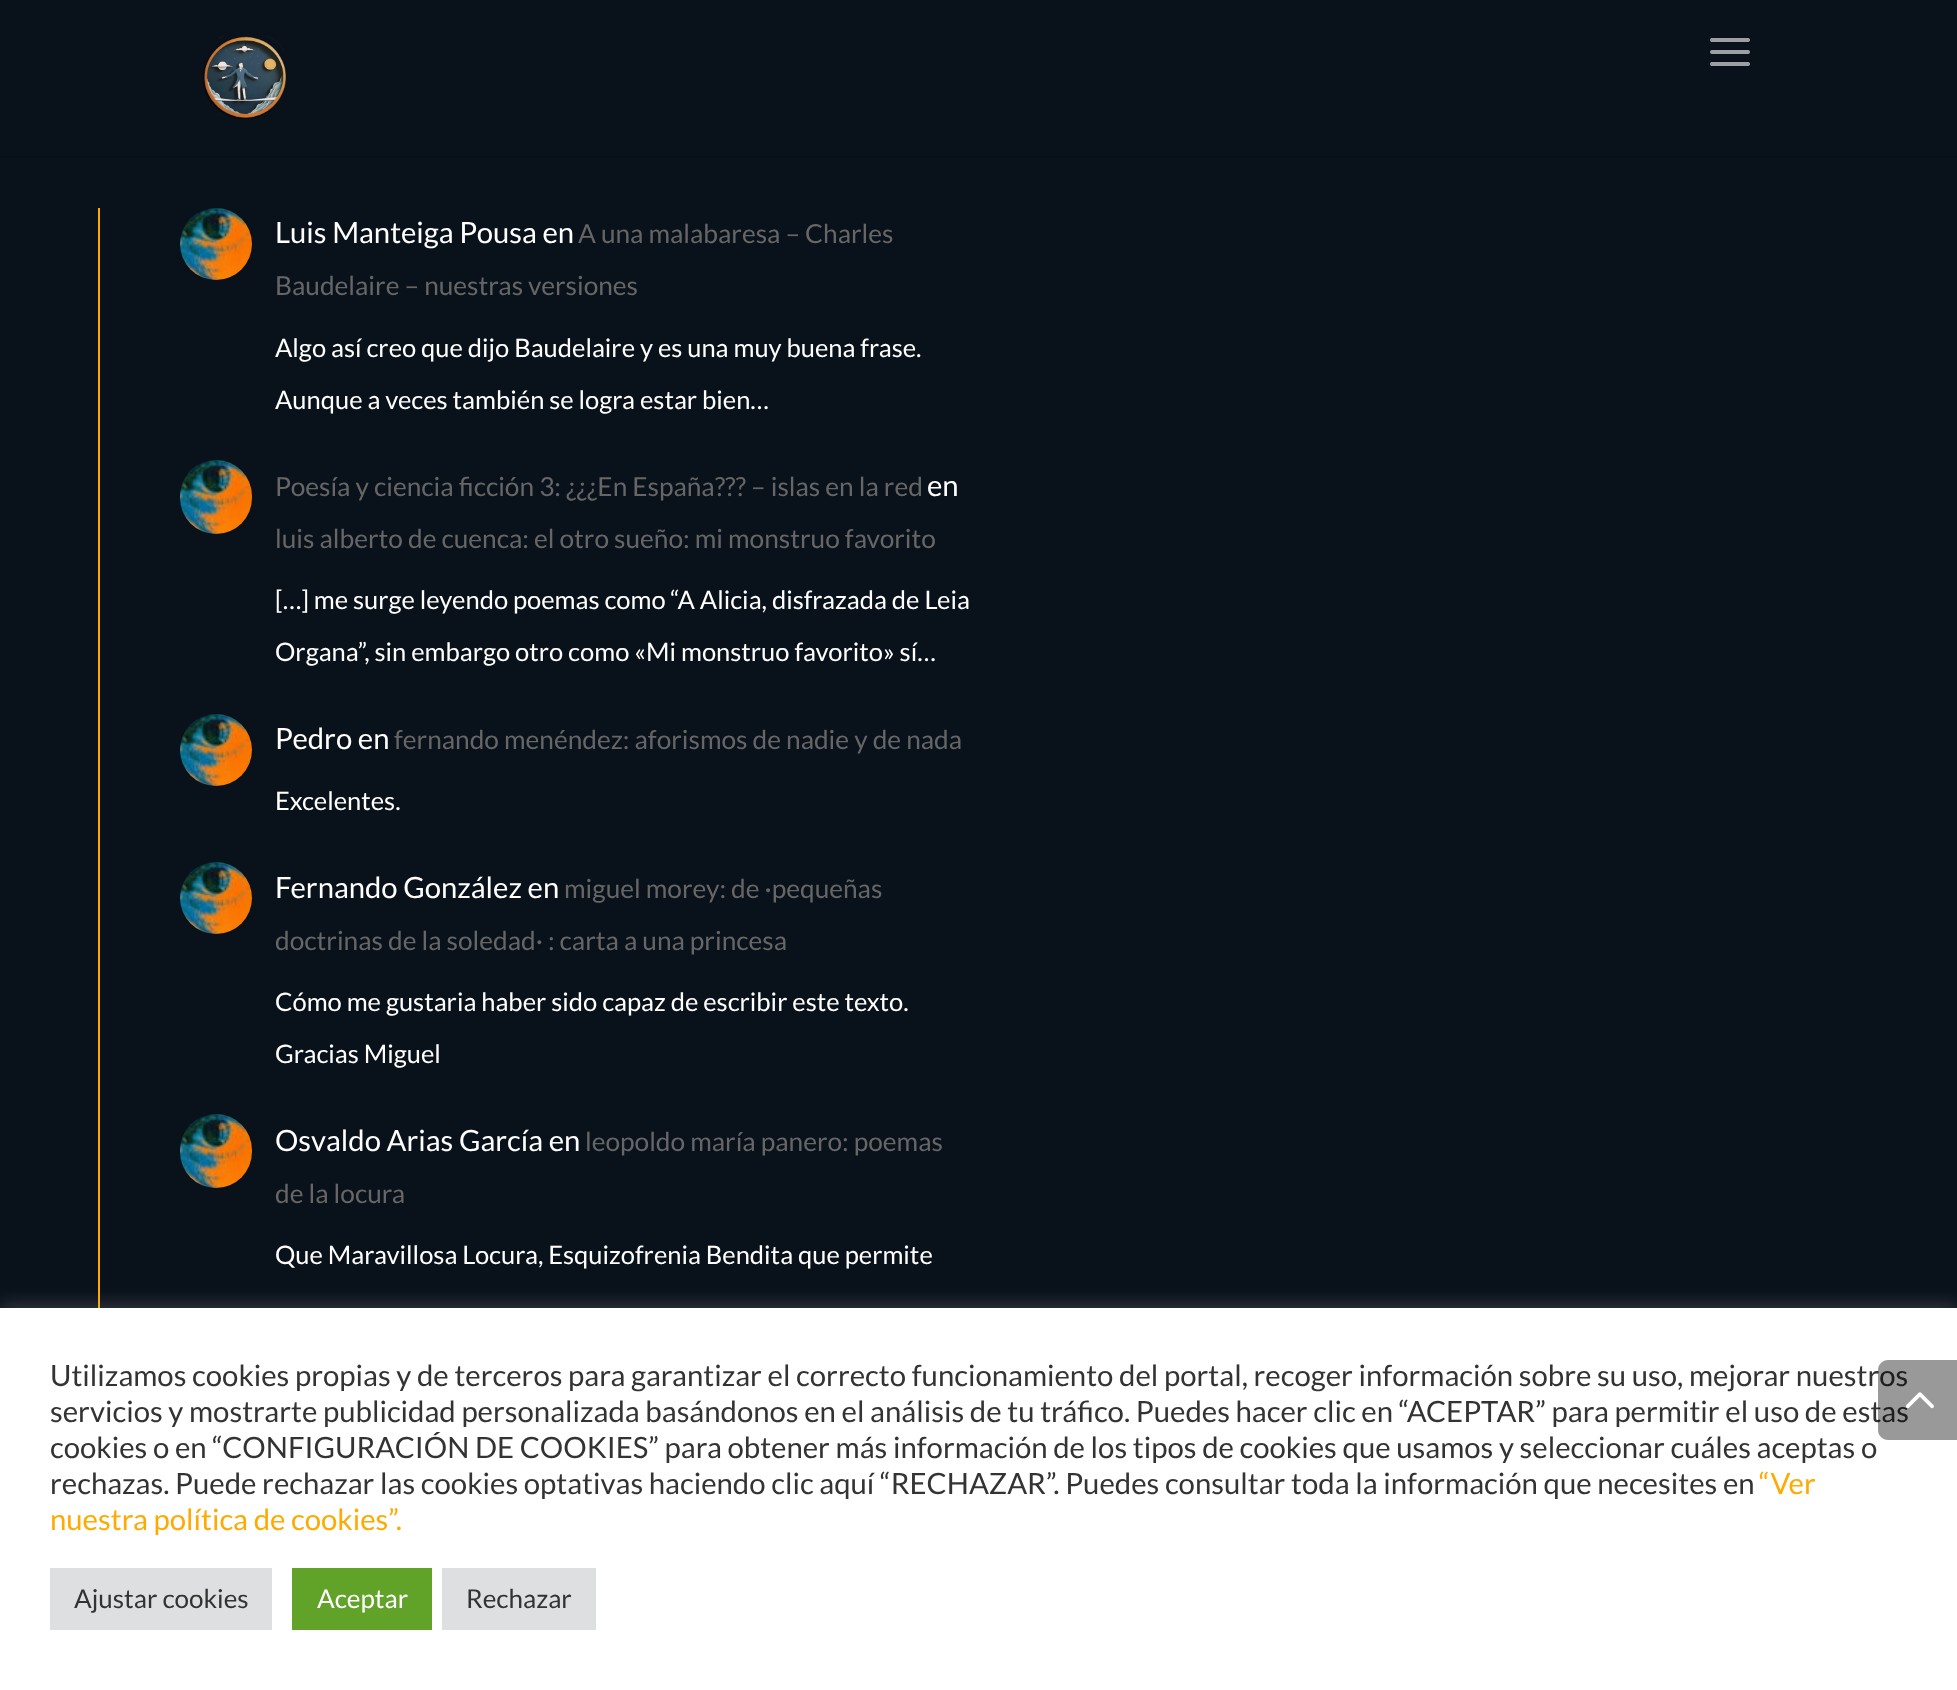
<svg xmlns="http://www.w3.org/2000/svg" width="1957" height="1690">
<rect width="100%" height="100%" fill="#09111b"/>
<rect y="156" width="1957" height="2" fill="#080f18"/>
<image x="203" y="36" width="83" height="83" href="media/1.png"/>
<image x="1710" y="38" width="40" height="28" href="media/2.png"/>
<rect x="98" y="208" width="2" height="1100" fill="#fa0"/>
<image x="180" y="208" width="72" height="72" href="media/3.png"/>
<text x="275" y="243" style="font-family:Lato;font-size:29.25px;fill:#fff">Luis Manteiga Pousa en</text>
<text x="578" y="243" style="font-family:Lato;font-size:26.25px;fill:#666">A una malabaresa – Charles</text>
<text x="275" y="295" style="font-family:Lato;font-size:26.25px;fill:#666">Baudelaire – nuestras versiones</text>
<text x="275" y="357" style="font-family:Lato;font-size:25.5px;fill:#fff">Algo así creo que dijo Baudelaire y es una muy buena frase.</text>
<text x="275" y="409" style="font-family:Lato;font-size:25.5px;fill:#fff">Aunque a veces también se logra estar bien…</text>
<image x="180" y="460" width="72" height="74" href="media/4.png"/>
<text x="275" y="496" style="font-family:Lato;font-size:26.25px;fill:#666">Poesía y ciencia ficción 3: ¿¿¿En España??? – islas en la red</text>
<text x="927" y="496" style="font-family:Lato;font-size:29.25px;fill:#fff">en</text>
<text x="275" y="548" style="font-family:Lato;font-size:26.25px;fill:#666">luis alberto de cuenca: el otro sueño: mi monstruo favorito</text>
<text x="275" y="609" style="font-family:Lato;font-size:25.5px;fill:#fff">[…] me surge leyendo poemas como “A Alicia, disfrazada de Leia</text>
<text x="275" y="661" style="font-family:Lato;font-size:25.5px;fill:#fff">Organa”, sin embargo otro como «Mi monstruo favorito» sí…</text>
<image x="180" y="714" width="72" height="72" href="media/3.png"/>
<text x="275" y="749" style="font-family:Lato;font-size:29.25px;fill:#fff">Pedro en</text>
<text x="394" y="749" style="font-family:Lato;font-size:26.25px;fill:#666">fernando menéndez: aforismos de nadie y de nada</text>
<text x="275" y="810" style="font-family:Lato;font-size:25.5px;fill:#fff">Excelentes.</text>
<image x="180" y="862" width="72" height="72" href="media/5.png"/>
<text x="275" y="898" style="font-family:Lato;font-size:29.25px;fill:#fff">Fernando González en</text>
<text x="564" y="898" style="font-family:Lato;font-size:26.25px;fill:#666">miguel morey: de ·pequeñas</text>
<text x="275" y="950" style="font-family:Lato;font-size:26.25px;fill:#666">doctrinas de la soledad· : carta a una princesa</text>
<text x="275" y="1011" style="font-family:Lato;font-size:25.5px;fill:#fff">Cómo me gustaria haber sido capaz de escribir este texto.</text>
<text x="275" y="1063" style="font-family:Lato;font-size:25.5px;fill:#fff">Gracias Miguel</text>
<image x="180" y="1114" width="72" height="74" href="media/4.png"/>
<text x="275" y="1151" style="font-family:Lato;font-size:29.25px;fill:#fff">Osvaldo Arias García en</text>
<text x="585" y="1151" style="font-family:Lato;font-size:26.25px;fill:#666">leopoldo maría panero: poemas</text>
<text x="275" y="1203" style="font-family:Lato;font-size:26.25px;fill:#666">de la locura</text>
<text x="275" y="1264" style="font-family:Lato;font-size:25.5px;fill:#fff">Que Maravillosa Locura, Esquizofrenia Bendita que permite</text>
<rect y="1306" width="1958" height="382" fill="#acabab4d" filter="blur(10px)"/>
<rect y="1308" width="1957" height="382" fill="#fff"/>
<text x="50" y="1386" style="font-family:Lato;font-size:29.33px;fill:#333">Utilizamos cookies propias y de terceros para garantizar el correcto funcionamiento del portal, recoger información sobre su uso, mejorar nuestros</text>
<text x="50" y="1422" style="font-family:Lato;font-size:29.33px;fill:#333">servicios y mostrarte publicidad personalizada basándonos en el análisis de tu tráfico. Puedes hacer clic en “ACEPTAR” para permitir el uso de estas</text>
<text x="50" y="1458" style="font-family:Lato;font-size:29.33px;fill:#333">cookies o en “CONFIGURACIÓN DE COOKIES” para obtener más información de los tipos de cookies que usamos y seleccionar cuáles aceptas o</text>
<text x="50" y="1494" style="font-family:Lato;font-size:29.33px;fill:#333">rechazas. Puede rechazar las cookies optativas haciendo clic aquí “RECHAZAR”. Puedes consultar toda la información que necesites en</text>
<text x="1759" y="1494" style="font-family:Lato;font-size:29.33px;fill:#fa0">“Ver</text>
<text x="50" y="1530" style="font-family:Lato;font-size:29.33px;fill:#fa0">nuestra política de cookies”.</text>
<rect x="50" y="1568" width="222" height="62" fill="#dedfe0"/>
<text x="74" y="1608" style="font-family:Lato;font-size:26px;fill:#333">Ajustar cookies</text>
<rect x="292" y="1568" width="140" height="62" fill="#61a229"/>
<text x="317" y="1608" style="font-family:Lato;font-size:26px;fill:#fff">Aceptar</text>
<rect x="442" y="1568" width="154" height="62" fill="#dedfe0"/>
<text x="466" y="1608" style="font-family:Lato;font-size:26px;fill:#333">Rechazar</text>
<path d="M1888 1360h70v80h-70c-5.5 0-10-4.5-10-10v-60c0-5.5 4.5-10 10-10z" fill="#00000066"/>
<image x="1905" y="1392" width="29" height="17" href="media/6.png"/>
</svg>
